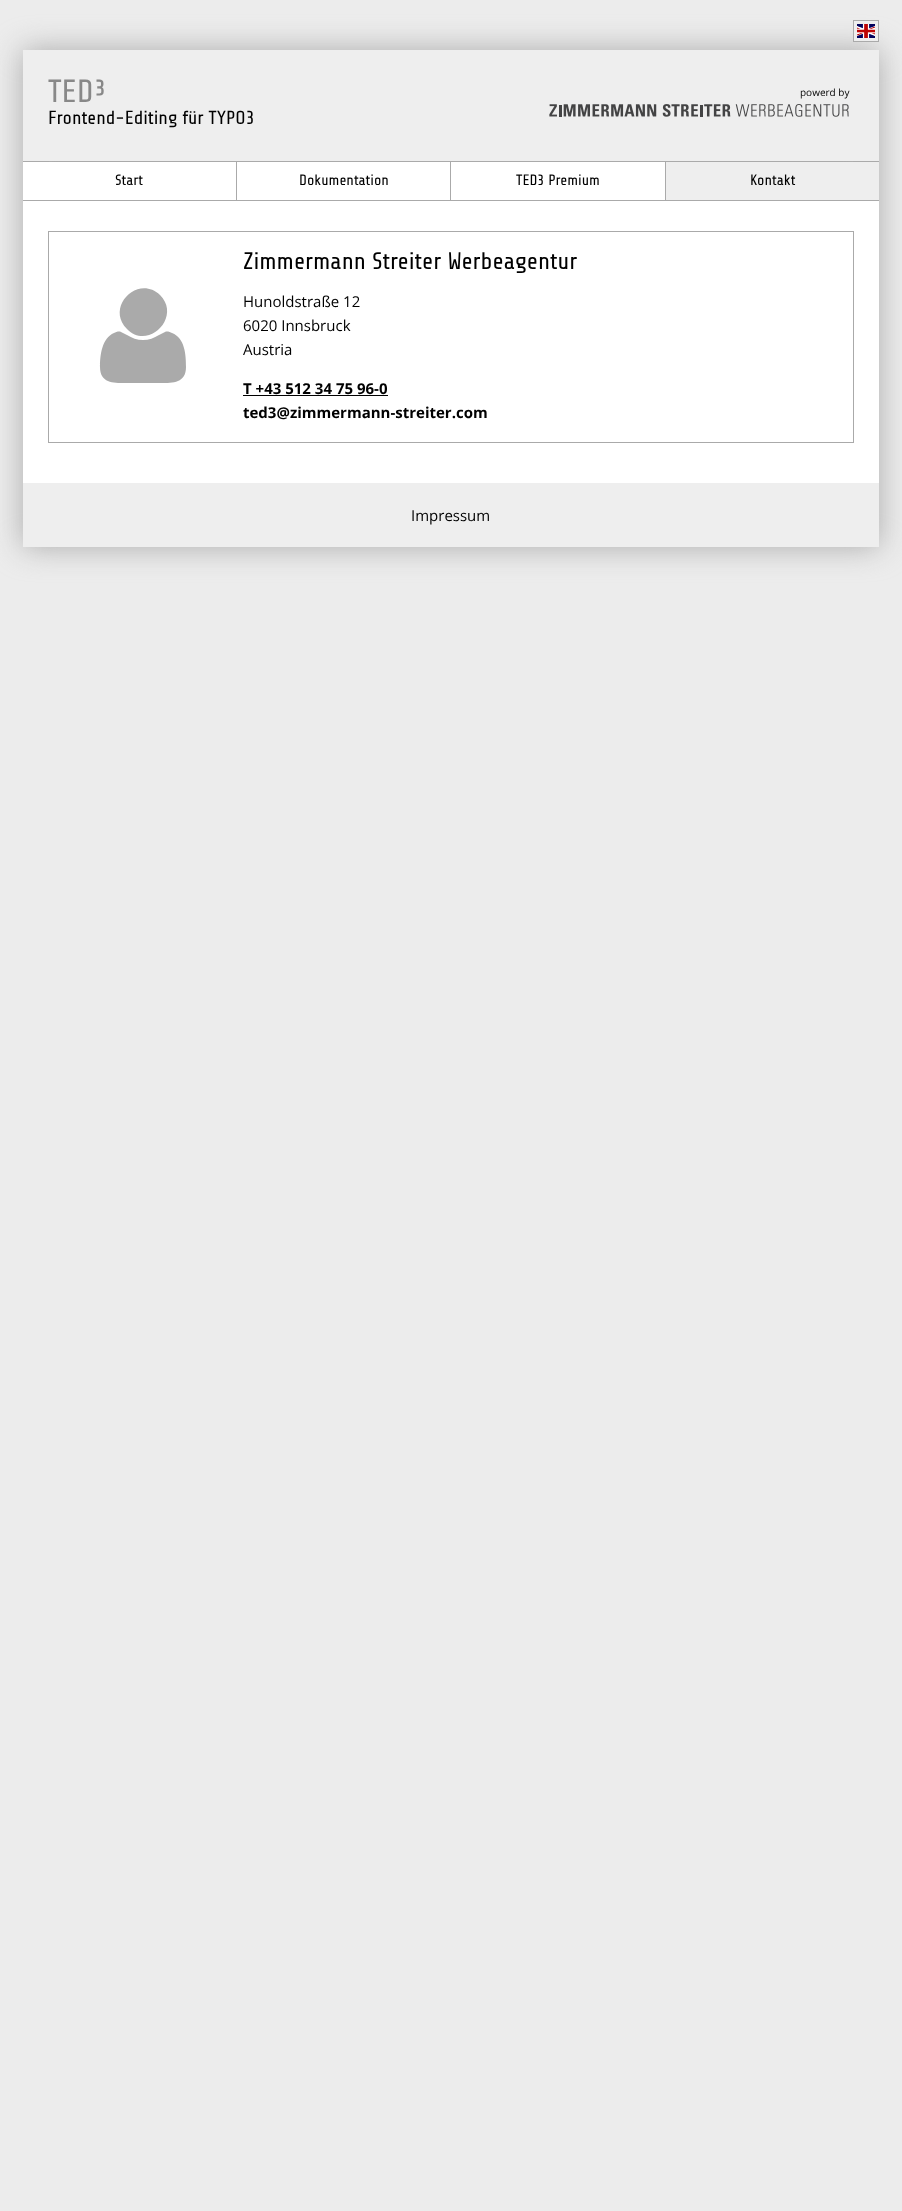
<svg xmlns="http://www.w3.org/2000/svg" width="902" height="2211">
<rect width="100%" height="100%" fill="#ececec"/>
<rect x="23" y="50" width="856" height="497" fill="#aaa" filter="blur(15px)"/>
<rect x="23" y="162" width="856" height="321" fill="#fff"/>
<rect x="853.5" y="20.5" width="25" height="21" fill="#eee" stroke="#aaa"/>
<image x="857" y="24" width="18" height="14" href="media/1.png"/>
<rect x="23" y="50" width="856" height="111" fill="#eee"/>
<text x="48" y="102" style="font-family:Share Tech;font-size:32px;fill:#888">TED³</text>
<text x="48" y="124" style="font-family:Share Tech;font-size:19px;fill:#000">Frontend-Editing für TYPO3</text>
<text x="800" y="96" style="font-family:Open Sans;font-size:10px;fill:#000">powerd by</text>
<image x="549" y="104" width="300" height="13" href="media/2.png"/>
<rect x="23" y="161" width="26" height="1" fill="#aaa"/>
<rect x="23" y="200" width="856" height="1" fill="#aaa"/>
<text x="115" y="185" style="font-family:Share Tech;font-size:15px;fill:#000">Start</text>
<rect x="236" y="161" width="1" height="40" fill="#aaa"/>
<text x="299" y="185" style="font-family:Share Tech;font-size:15px;fill:#000">Dokumentation</text>
<rect x="450" y="161" width="1" height="40" fill="#aaa"/>
<text x="516" y="185" style="font-family:Share Tech;font-size:15px;fill:#000">TED3 Premium</text>
<rect x="666" y="162" width="213" height="38" fill="#eee"/>
<rect x="853" y="161" width="26" height="1" fill="#aaa"/>
<rect x="665" y="161" width="1" height="40" fill="#aaa"/>
<text x="750" y="185" style="font-family:Share Tech;font-size:15px;fill:#000">Kontakt</text>
<rect x="48.5" y="231.5" width="805" height="211" fill="none" stroke="#aaa"/>
<path d="M186 367c0 16-13 16-25 16h-36c-12 0-25 0-25-16c0-12 2-29 14-34c2-1 5-2 7-1l6 3c5 3 10 5 16 5c6 0 11-2 16-5l6-3c2-1 5 0 7 1c13 5 14 22 14 34zm-26-72c22 22-12 56-33 34c-22-22 11-55 33-34z" fill="#aaa"/>
<text x="243" y="269" style="font-family:Share Tech;font-size:24px;fill:#000">Zimmermann Streiter Werbeagentur</text>
<text x="243" y="307" style="font-family:Open Sans;font-size:15px;fill:#000">Hunoldstraße 12</text>
<text x="243" y="331" style="font-family:Open Sans;font-size:15px;fill:#000">6020 Innsbruck</text>
<text x="243" y="355" style="font-family:Open Sans;font-size:15px;fill:#000">Austria</text>
<text x="243" y="394" style="font-family:Open Sans;font-size:15px;font-weight:bold;fill:#000">T +43 512 34 75 96-0</text>
<rect x="243" y="395" width="145" height="1" fill="#000"/>
<text x="243" y="418" style="font-family:Open Sans;font-size:15px;font-weight:bold;fill:#000">ted3@zimmermann-streiter.com</text>
<rect x="23" y="483" width="856" height="64" fill="#eee"/>
<text x="411" y="521" style="font-family:Open Sans;font-size:15px;fill:#000">Impressum</text>
</svg>
